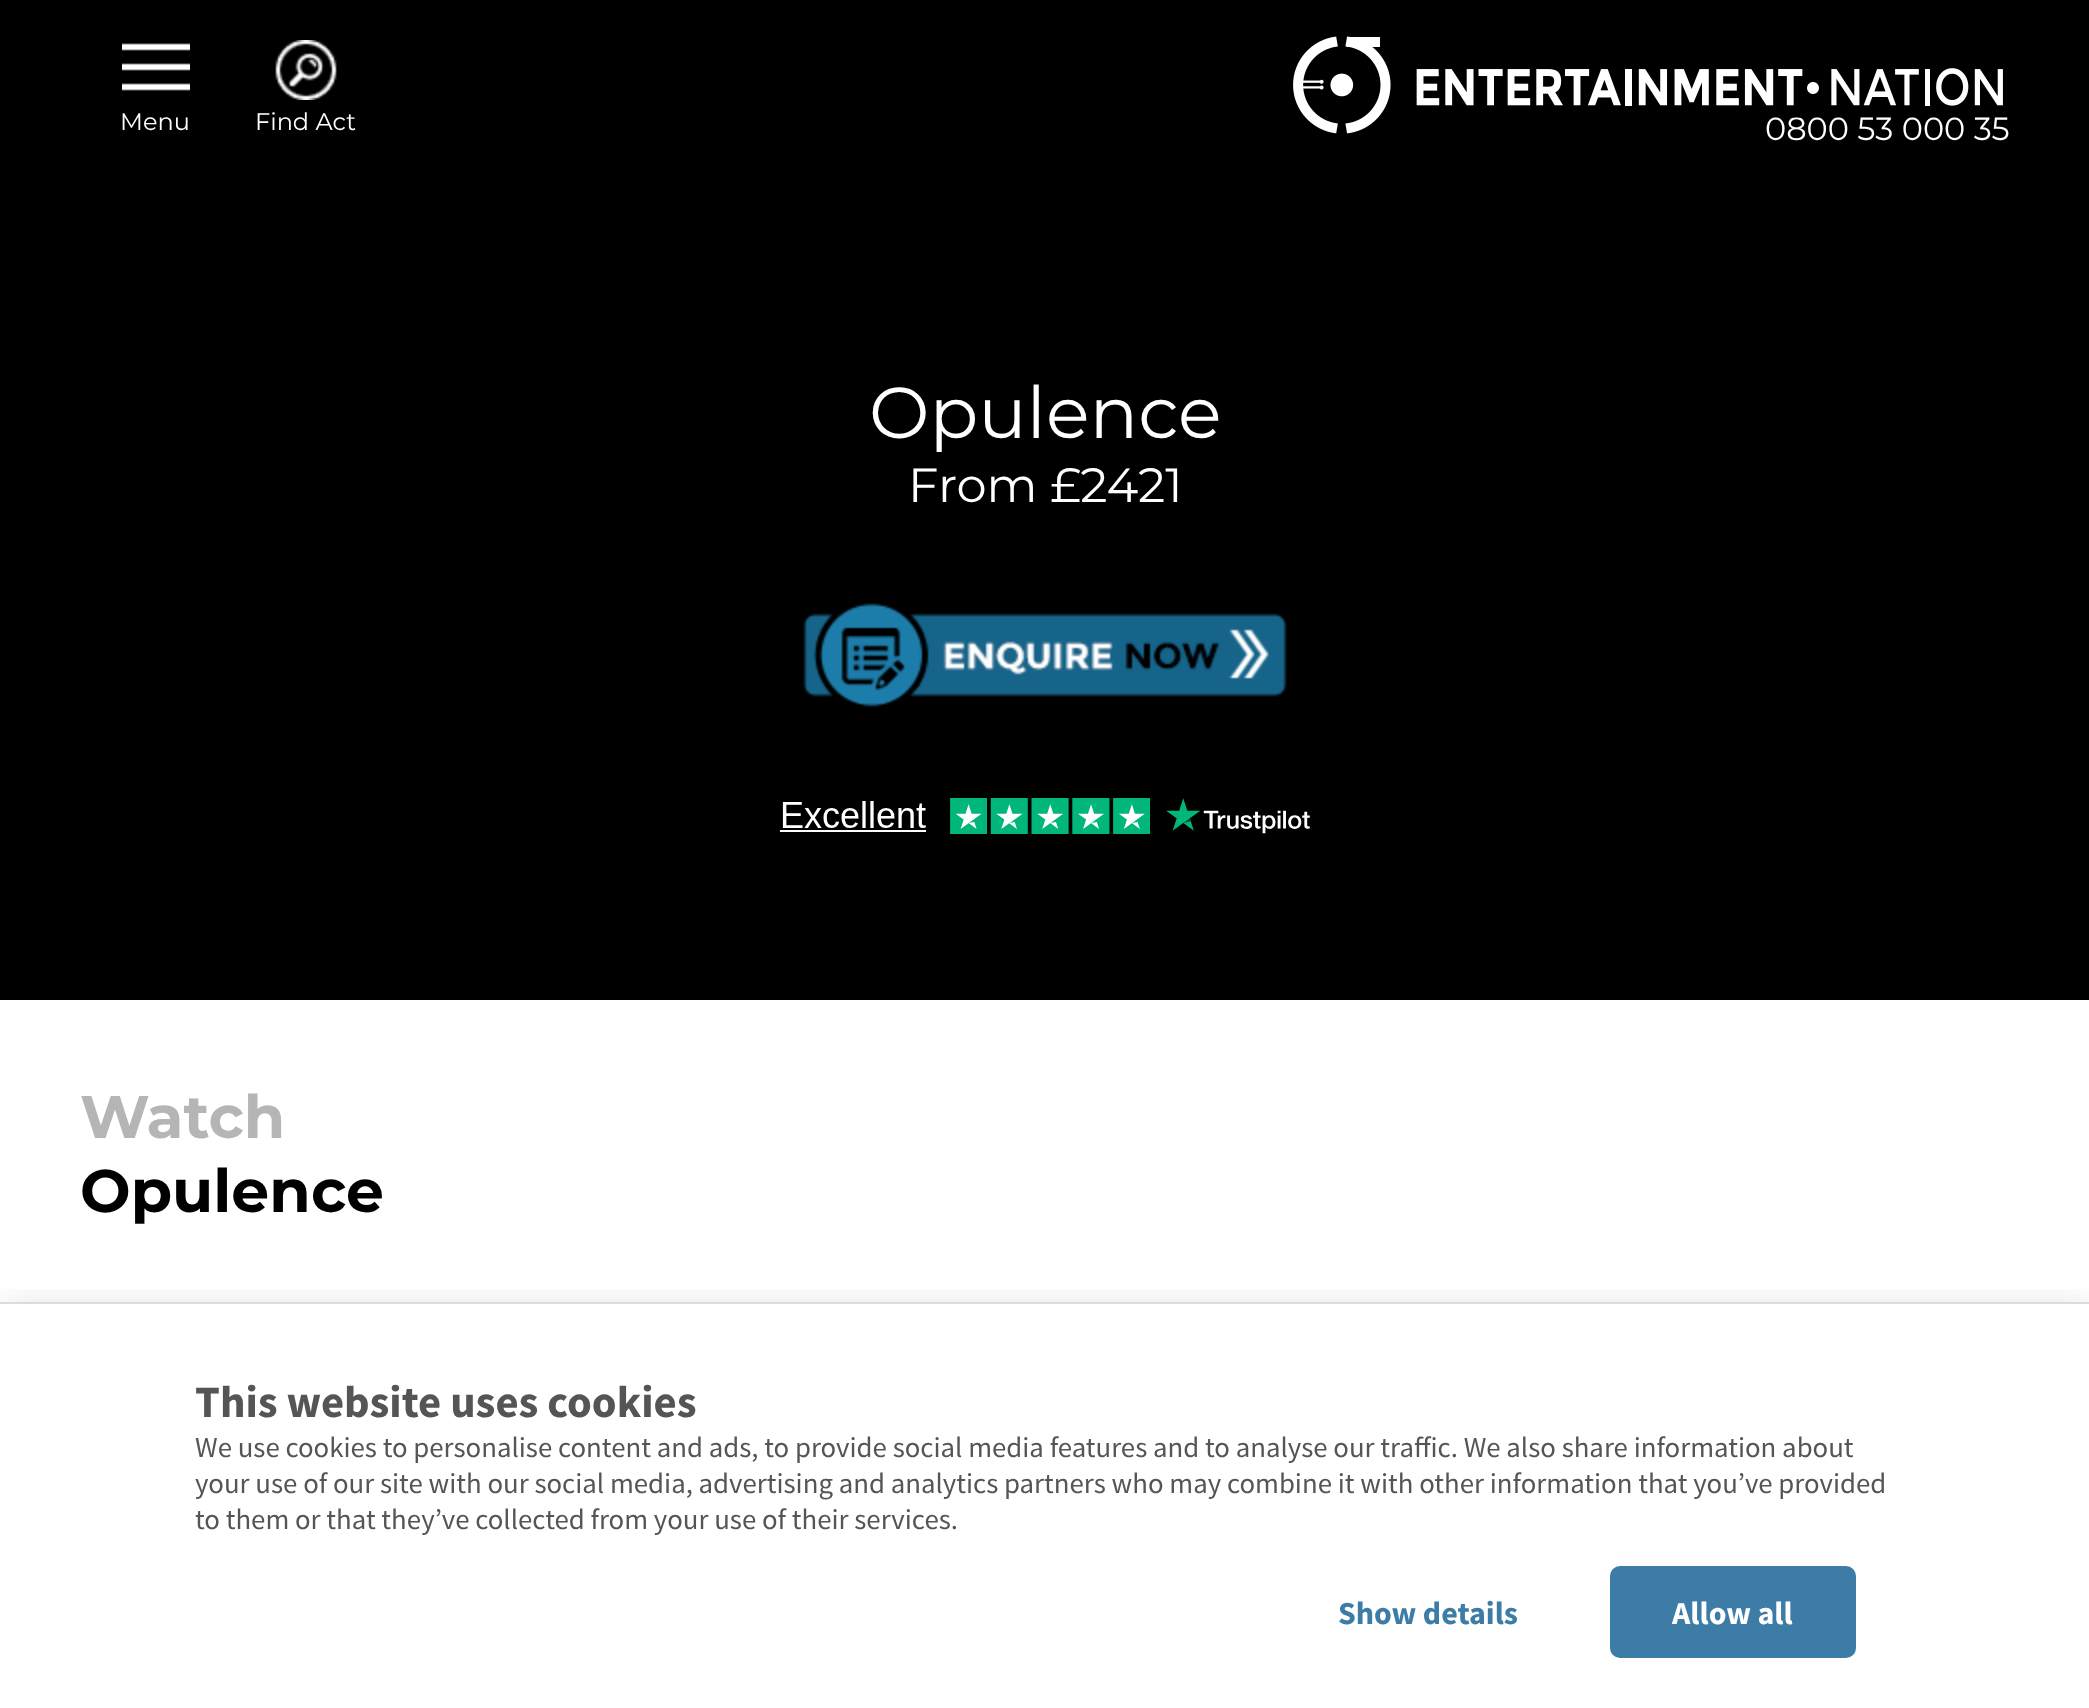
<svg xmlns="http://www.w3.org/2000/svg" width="2089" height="1708">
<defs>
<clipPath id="clip1"><rect x="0" y="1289" width="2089" height="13"/></clipPath>
</defs>
<rect width="100%" height="100%" fill="#fff"/>
<rect width="2089" height="1000" fill="#000"/>
<image x="122" y="43" width="68" height="48" href="media/1.png"/>
<text x="120" y="130" style="font-family:Montserrat;font-size:24px;fill:#fff">Menu</text>
<image x="275" y="40" width="62" height="60" href="media/2.png"/>
<text x="255" y="130" style="font-family:Montserrat;font-size:24px;fill:#fff">Find Act</text>
<image x="1293" y="36" width="710" height="98" href="media/3.png"/>
<text x="1765" y="140" style="font-family:Montserrat;font-size:32px;fill:#fff">0800 53 000 35</text>
<text x="869" y="438" style="font-family:Montserrat;font-size:72px;fill:#fff">Opulence</text>
<text x="908" y="502" style="font-family:Montserrat;font-size:48px;fill:#fff">From £2421</text>
<image x="803" y="603" width="484" height="104" href="media/4.png"/>
<image x="779" y="798" width="531" height="36" href="media/5.png"/>
<text x="80" y="1138" style="font-family:Montserrat;font-size:60px;font-weight:bold;fill:#b5b5b5">Watch</text>
<text x="80" y="1212" style="font-family:Montserrat;font-size:60px;font-weight:bold;fill:#000">Opulence</text>
<g clip-path="url(#clip1)">
<rect y="1314" width="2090" height="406" fill="#00000030" filter="blur(20px)"/>
</g>
<rect y="1302" width="2089" height="2" fill="#dcdcdc"/>
<text x="195" y="1417" style="font-family:Source Sans Pro;font-size:44.75px;font-weight:bold;fill:#555">This website uses cookies</text>
<text x="195" y="1457" style="font-family:Source Sans Pro;font-size:28.8px;fill:#555">We use cookies to personalise content and ads, to provide social media features and to analyse our traffic. We also share information about</text>
<text x="195" y="1493" style="font-family:Source Sans Pro;font-size:28.8px;fill:#555">your use of our site with our social media, advertising and analytics partners who may combine it with other information that you’ve provided</text>
<text x="195" y="1529" style="font-family:Source Sans Pro;font-size:28.8px;fill:#555">to them or that they’ve collected from your use of their services.</text>
<text x="1338" y="1624" style="font-family:Source Sans Pro;font-size:32px;font-weight:bold;fill:#3d7ca7">Show details</text>
<rect x="1611" y="1567" width="244" height="90" rx="9" fill="#3d7ca7" stroke="#3d7ca7" stroke-width="2"/>
<text x="1672" y="1624" style="font-family:Source Sans Pro;font-size:32px;font-weight:bold;fill:#fff">Allow all</text>
</svg>
